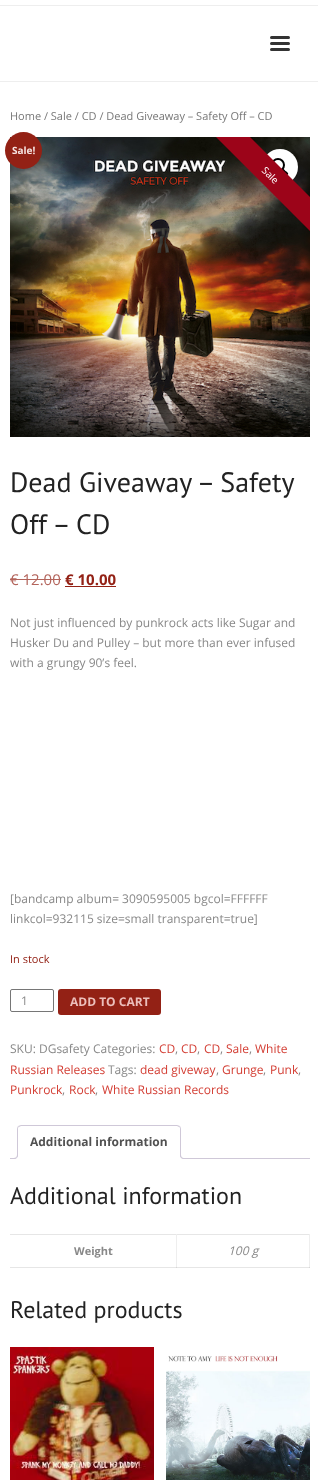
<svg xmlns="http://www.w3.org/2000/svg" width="318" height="1480">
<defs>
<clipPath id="clip1"><rect x="210" y="137" width="100" height="100"/></clipPath>
<clipPath id="clip2"><rect x="10" y="1125" width="300" height="34"/></clipPath>
</defs>
<rect width="100%" height="100%" fill="#fff"/>
<rect x="10" y="1267" width="300" height="1" fill="#e6e6e6"/>
<rect y="81" width="318" height="1" fill="#eee"/>
<rect y="5" width="318" height="1" fill="#eee"/>
<rect x="270" y="36" width="20" height="3" rx="1.5" fill="#333"/>
<rect x="270" y="42" width="20" height="3" rx="1.5" fill="#333"/>
<rect x="270" y="48" width="20" height="3" rx="1.5" fill="#333"/>
<text x="10" y="120" style="font-family:Open Sans;font-size:11px;fill:#777">Home / Sale / CD / Dead Giveaway – Safety Off – CD</text>
<image x="10" y="137" width="300" height="300" href="media/1.png"/>
<circle cx="23.5" cy="150.5" r="18.5" fill="#932115"/>
<text x="12" y="154" style="font-family:Open Sans;font-size:10px;font-weight:bold;fill:#f7e5e3">Sale!</text>
<circle cx="280" cy="167" r="18" fill="#fff"/>
<circle cx="278" cy="165" r="6" fill="none" stroke="#000" stroke-width="2"/>
<path d="M282 169c1.5-1 3 1.5 3.5 2c1 .5 3.5 2.5 2.5 3.5c-1.5 1.5-3-1.5-3.5-2c-1-.5-3.5-2.5-2.5-3.5z" fill="#000"/>
<g clip-path="url(#clip1)">
<path d="M229 116l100 100l-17 17l-100-100z" fill="#9c0419"/>
</g>
<text x="261" y="171" transform="rotate(45 261 171)" style="font-family:Open Sans;font-size:10px;fill:#fff">Sale</text>
<text x="10" y="492" style="font-family:PT Sans;font-size:28px;fill:#222">Dead Giveaway – Safety</text>
<text x="10" y="534" style="font-family:PT Sans;font-size:28px;fill:#222">Off – CD</text>
<text x="10" y="585" style="font-family:Open Sans;font-size:15px;fill:#b3645b">€ 12.00</text>
<rect x="10" y="579" width="51" height="1" fill="#b3645b"/>
<text x="65" y="585" style="font-family:Open Sans;font-size:15px;font-weight:bold;fill:#932115">€ 10.00</text>
<rect x="65" y="586" width="51" height="1" fill="#932115"/>
<text x="10" y="627" style="font-family:Open Sans;font-size:12px;fill:#888">Not just influenced by punkrock acts like Sugar and</text>
<text x="10" y="647" style="font-family:Open Sans;font-size:12px;fill:#888">Husker Du and Pulley – but more than ever infused</text>
<text x="10" y="667" style="font-family:Open Sans;font-size:12px;fill:#888">with a grungy 90’s feel.</text>
<text x="10" y="903" style="font-family:Open Sans;font-size:12px;fill:#888">[bandcamp album= 3090595005 bgcol=FFFFFF</text>
<text x="10" y="923" style="font-family:Open Sans;font-size:12px;fill:#888">linkcol=932115 size=small transparent=true]</text>
<text x="10" y="963" style="font-family:Open Sans;font-size:11px;fill:#932115">In stock</text>
<rect x="10.5" y="989.5" width="43" height="22" rx="1.5" fill="none" stroke="#767676"/>
<text x="21" y="1005" style="font-family:Open Sans;font-size:12px;fill:#888">1</text>
<rect x="58" y="989" width="103" height="26" rx="3" fill="#932115"/>
<text x="70" y="1006" style="font-family:Open Sans;font-size:12px;font-weight:bold;fill:#ecbfbb">ADD TO CART</text>
<text x="10" y="1053" style="font-family:Open Sans;font-size:12px;fill:#888">SKU: DGsafety Categories:</text>
<text x="159" y="1053" style="font-family:Open Sans;font-size:12px;fill:#d33d33">CD</text>
<text x="175" y="1053" style="font-family:Open Sans;font-size:12px;fill:#888">,</text>
<text x="181" y="1053" style="font-family:Open Sans;font-size:12px;fill:#d33d33">CD</text>
<text x="197" y="1053" style="font-family:Open Sans;font-size:12px;fill:#888">,</text>
<text x="204" y="1053" style="font-family:Open Sans;font-size:12px;fill:#d33d33">CD</text>
<text x="220" y="1053" style="font-family:Open Sans;font-size:12px;fill:#888">,</text>
<text x="226" y="1053" style="font-family:Open Sans;font-size:12px;fill:#d33d33">Sale</text>
<text x="249" y="1053" style="font-family:Open Sans;font-size:12px;fill:#888">,</text>
<text x="255" y="1053" style="font-family:Open Sans;font-size:12px;fill:#d33d33">White</text>
<text x="10" y="1074" style="font-family:Open Sans;font-size:12px;fill:#d33d33">Russian Releases</text>
<text x="108" y="1074" style="font-family:Open Sans;font-size:12px;fill:#888">Tags:</text>
<text x="140" y="1074" style="font-family:Open Sans;font-size:12px;fill:#d33d33">dead giveway</text>
<text x="216" y="1074" style="font-family:Open Sans;font-size:12px;fill:#888">,</text>
<text x="222" y="1074" style="font-family:Open Sans;font-size:12px;fill:#d33d33">Grunge</text>
<text x="263" y="1074" style="font-family:Open Sans;font-size:12px;fill:#888">,</text>
<text x="270" y="1074" style="font-family:Open Sans;font-size:12px;fill:#d33d33">Punk</text>
<text x="298" y="1074" style="font-family:Open Sans;font-size:12px;fill:#888">,</text>
<text x="10" y="1094" style="font-family:Open Sans;font-size:12px;fill:#d33d33">Punkrock</text>
<text x="62" y="1094" style="font-family:Open Sans;font-size:12px;fill:#888">,</text>
<text x="69" y="1094" style="font-family:Open Sans;font-size:12px;fill:#d33d33">Rock</text>
<text x="95" y="1094" style="font-family:Open Sans;font-size:12px;fill:#888">,</text>
<text x="102" y="1094" style="font-family:Open Sans;font-size:12px;fill:#d33d33">White Russian Records</text>
<rect x="10" y="1158" width="300" height="1" fill="#cfc8d8"/>
<path d="M21 1125h156c2 0 4 2 4 4v30h-164v-30c0-2 2-4 4-4z" fill="#fff"/>
<path d="M21 1125l-3 1l1 1l2-1h156l2 1l1-1l-3-1z" fill="#cfc8d8"/>
<path d="M181 1159v-30c0-1-.5-2-1-3l-1 1c1 0 1 1 1 2v29z" fill="#cfc8d8"/>
<path d="M181 1159l-1-1h-162l-1 1z" fill="#fff"/>
<path d="M17 1159l1-1v-29c0-1 0-2 1-2l-1-1c-.5 1-1 2-1 3z" fill="#cfc8d8"/>
<text x="30" y="1146" style="font-family:Open Sans;font-size:12px;font-weight:bold;fill:#515151">Additional information</text>
<g clip-path="url(#clip2)">
<path d="M15 1159v2c3.5 0 5-1.5 5-5h-2c-.5 1.5-1.5 2.5-3 3z" fill="#fff"/>
</g>
<path d="M13 1154h5c0 3.5-1.5 5-5 5zm0 0h4c0 3-1 4-4 4z" fill="#cfc8d8" fill-rule="evenodd"/>
<g clip-path="url(#clip2)">
<path d="M178 1156c0 3.5 1.5 5 5 5v-2c-1.5-.5-2.5-1.5-3-3z" fill="#fff"/>
</g>
<path d="M180 1154h5v5c-2.5 0-5-1-5-4zm1 0h4v4c-2 0-4-.5-4-3z" fill="#cfc8d8" fill-rule="evenodd"/>
<text x="10" y="1204" style="font-family:PT Sans;font-size:24px;fill:#222">Additional information</text>
<rect x="10" y="1234" width="300" height="1" fill="#e6e6e6"/>
<rect x="176" y="1234" width="1" height="34" fill="#eee"/>
<rect x="176" y="1267" width="1" height="1" fill="#d6d6d6"/>
<text x="74" y="1255" style="font-family:Open Sans;font-size:11px;font-weight:bold;fill:#888">Weight</text>
<rect x="309" y="1234" width="1" height="34" fill="#eee"/>
<rect x="309" y="1267" width="1" height="1" fill="#d6d6d6"/>
<text x="228" y="1255" style="font-family:Open Sans;font-size:12px;font-style:italic;fill:#888">100 g</text>
<text x="10" y="1318" style="font-family:PT Sans;font-size:24px;fill:#222">Related products</text>
<image x="10" y="1347" width="144" height="133" href="media/2.png"/>
<image x="166" y="1355" width="144" height="125" href="media/3.png"/>
</svg>
